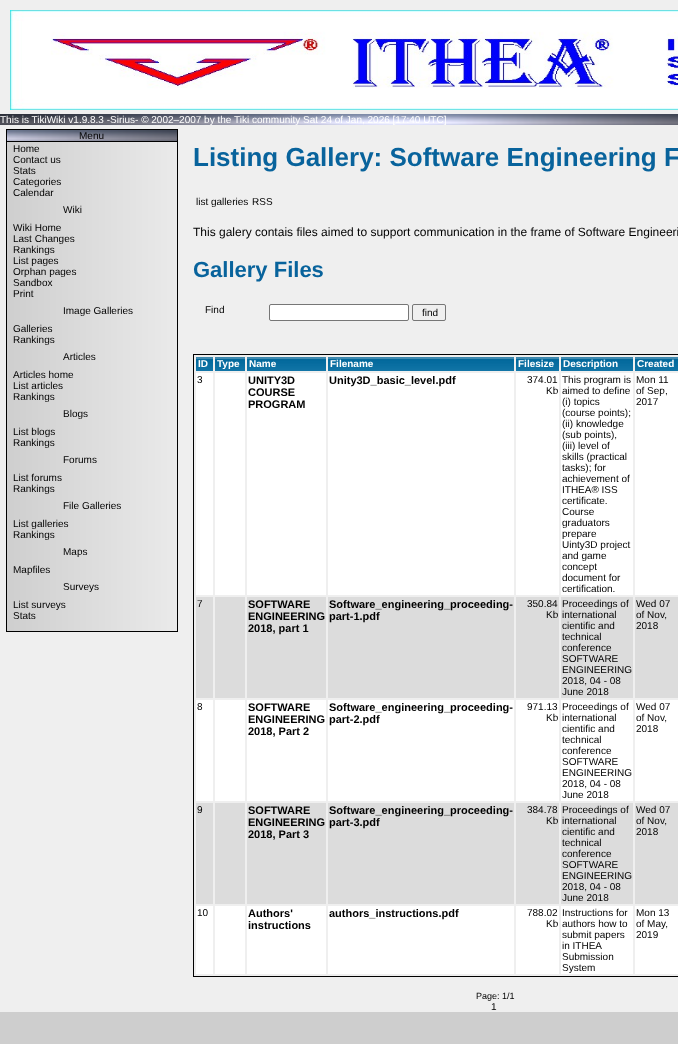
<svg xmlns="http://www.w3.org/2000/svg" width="678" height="1044">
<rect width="100%" height="100%" fill="#efefef"/>
<image x="10" y="10" width="668" height="100" href="media/1.png"/>
<image x="0" y="114" width="678" height="11" href="media/2.png"/>
<text x="0" y="123" style="font-family:Liberation Sans;font-size:10px;fill:#fff">This is TikiWiki v1.9.8.3 -Sirius- © 2002–2007 by the Tiki community Sat 24 of Jan, 2026 [17:40 UTC]</text>
<image x="7" y="142" width="170" height="489" href="media/3.png"/>
<rect x="6.5" y="129.5" width="171" height="502" fill="none" stroke="#000"/>
<image x="7" y="130" width="170" height="11" href="media/4.png"/>
<rect x="7" y="141" width="170" height="1" fill="#000"/>
<text x="79" y="139" style="font-family:Liberation Sans;font-size:10px;fill:#000">Menu</text>
<text x="13" y="152" style="font-family:Liberation Sans;font-size:10px;fill:#000">Home</text>
<text x="13" y="163" style="font-family:Liberation Sans;font-size:10px;fill:#000">Contact us</text>
<text x="13" y="174" style="font-family:Liberation Sans;font-size:10px;fill:#000">Stats</text>
<text x="13" y="185" style="font-family:Liberation Sans;font-size:10px;fill:#000">Categories</text>
<text x="13" y="196" style="font-family:Liberation Sans;font-size:10px;fill:#000">Calendar</text>
<text x="63" y="213" style="font-family:Liberation Sans;font-size:10px;fill:#000">Wiki</text>
<text x="13" y="231" style="font-family:Liberation Sans;font-size:10px;fill:#000">Wiki Home</text>
<text x="13" y="242" style="font-family:Liberation Sans;font-size:10px;fill:#000">Last Changes</text>
<text x="13" y="253" style="font-family:Liberation Sans;font-size:10px;fill:#000">Rankings</text>
<text x="13" y="264" style="font-family:Liberation Sans;font-size:10px;fill:#000">List pages</text>
<text x="13" y="275" style="font-family:Liberation Sans;font-size:10px;fill:#000">Orphan pages</text>
<text x="13" y="286" style="font-family:Liberation Sans;font-size:10px;fill:#000">Sandbox</text>
<text x="13" y="297" style="font-family:Liberation Sans;font-size:10px;fill:#000">Print</text>
<text x="63" y="314" style="font-family:Liberation Sans;font-size:10px;fill:#000">Image Galleries</text>
<text x="13" y="332" style="font-family:Liberation Sans;font-size:10px;fill:#000">Galleries</text>
<text x="13" y="343" style="font-family:Liberation Sans;font-size:10px;fill:#000">Rankings</text>
<text x="63" y="360" style="font-family:Liberation Sans;font-size:10px;fill:#000">Articles</text>
<text x="13" y="378" style="font-family:Liberation Sans;font-size:10px;fill:#000">Articles home</text>
<text x="13" y="389" style="font-family:Liberation Sans;font-size:10px;fill:#000">List articles</text>
<text x="13" y="400" style="font-family:Liberation Sans;font-size:10px;fill:#000">Rankings</text>
<text x="63" y="417" style="font-family:Liberation Sans;font-size:10px;fill:#000">Blogs</text>
<text x="13" y="435" style="font-family:Liberation Sans;font-size:10px;fill:#000">List blogs</text>
<text x="13" y="446" style="font-family:Liberation Sans;font-size:10px;fill:#000">Rankings</text>
<text x="63" y="463" style="font-family:Liberation Sans;font-size:10px;fill:#000">Forums</text>
<text x="13" y="481" style="font-family:Liberation Sans;font-size:10px;fill:#000">List forums</text>
<text x="13" y="492" style="font-family:Liberation Sans;font-size:10px;fill:#000">Rankings</text>
<text x="63" y="509" style="font-family:Liberation Sans;font-size:10px;fill:#000">File Galleries</text>
<text x="13" y="527" style="font-family:Liberation Sans;font-size:10px;fill:#000">List galleries</text>
<text x="13" y="538" style="font-family:Liberation Sans;font-size:10px;fill:#000">Rankings</text>
<text x="63" y="555" style="font-family:Liberation Sans;font-size:10px;fill:#000">Maps</text>
<text x="13" y="573" style="font-family:Liberation Sans;font-size:10px;fill:#000">Mapfiles</text>
<text x="63" y="590" style="font-family:Liberation Sans;font-size:10px;fill:#000">Surveys</text>
<text x="13" y="608" style="font-family:Liberation Sans;font-size:10px;fill:#000">List surveys</text>
<text x="13" y="619" style="font-family:Liberation Sans;font-size:10px;fill:#000">Stats</text>
<text x="193" y="166" style="font-family:Liberation Sans;font-size:26px;font-weight:bold;fill:#08639c">Listing Gallery: Software Engineering F</text>
<text x="196" y="205" style="font-family:Liberation Sans;font-size:10px;fill:#000">list galleries</text>
<text x="252" y="205" style="font-family:Liberation Sans;font-size:10px;fill:#000">RSS</text>
<text x="193" y="236" style="font-family:Liberation Sans;font-size:12px;fill:#000">This galery contais files aimed to support communication in the frame of Software Engineeri</text>
<text x="193" y="277" style="font-family:Liberation Sans;font-size:22px;font-weight:bold;fill:#08639c">Gallery Files</text>
<text x="205" y="313" style="font-family:Liberation Sans;font-size:10px;fill:#000">Find</text>
<rect x="269.5" y="304.5" width="139" height="16" rx="1.5" fill="#fff" stroke="#767676"/>
<rect x="412.5" y="304.5" width="33" height="16" rx="1.5" fill="none" stroke="#767676"/>
<text x="422" y="316" style="font-family:Liberation Sans;font-size:10px;fill:#000">find</text>
<rect x="193.5" y="354.5" width="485" height="622" fill="none" stroke="#000"/>
<image x="196" y="357" width="17" height="14" href="media/5.png"/>
<text x="198" y="367" style="font-family:Liberation Sans;font-size:10px;font-weight:bold;fill:#fff">ID</text>
<image x="215" y="357" width="30" height="14" href="media/6.png"/>
<text x="217" y="367" style="font-family:Liberation Sans;font-size:10px;font-weight:bold;fill:#fff">Type</text>
<image x="247" y="357" width="79" height="14" href="media/7.png"/>
<text x="249" y="367" style="font-family:Liberation Sans;font-size:10px;font-weight:bold;fill:#fff">Name</text>
<image x="328" y="357" width="186" height="14" href="media/8.png"/>
<text x="330" y="367" style="font-family:Liberation Sans;font-size:10px;font-weight:bold;fill:#fff">Filename</text>
<image x="516" y="357" width="43" height="14" href="media/9.png"/>
<text x="518" y="367" style="font-family:Liberation Sans;font-size:10px;font-weight:bold;fill:#fff">Filesize</text>
<image x="561" y="357" width="72" height="14" href="media/10.png"/>
<text x="563" y="367" style="font-family:Liberation Sans;font-size:10px;font-weight:bold;fill:#fff">Description</text>
<image x="635" y="357" width="43" height="14" href="media/9.png"/>
<text x="637" y="367" style="font-family:Liberation Sans;font-size:10px;font-weight:bold;fill:#fff">Created</text>
<rect x="196" y="373" width="17" height="222" fill="#fff"/>
<text x="197" y="383" style="font-family:Liberation Sans;font-size:10px;fill:#000">3</text>
<rect x="215" y="373" width="30" height="222" fill="#fff"/>
<rect x="247" y="373" width="79" height="222" fill="#fff"/>
<text x="248" y="384" style="font-family:Liberation Sans;font-size:11px;font-weight:bold;fill:#000">UNITY3D</text>
<text x="248" y="396" style="font-family:Liberation Sans;font-size:11px;font-weight:bold;fill:#000">COURSE</text>
<text x="248" y="408" style="font-family:Liberation Sans;font-size:11px;font-weight:bold;fill:#000">PROGRAM</text>
<rect x="328" y="373" width="186" height="222" fill="#fff"/>
<text x="329" y="384" style="font-family:Liberation Sans;font-size:11px;font-weight:bold;fill:#000">Unity3D_basic_level.pdf</text>
<rect x="516" y="373" width="43" height="222" fill="#fff"/>
<text x="527" y="383" style="font-family:Liberation Sans;font-size:10px;fill:#000">374.01</text>
<text x="546" y="394" style="font-family:Liberation Sans;font-size:10px;fill:#000">Kb</text>
<rect x="561" y="373" width="72" height="222" fill="#fff"/>
<text x="562" y="383" style="font-family:Liberation Sans;font-size:10px;fill:#000">This program is</text>
<text x="562" y="394" style="font-family:Liberation Sans;font-size:10px;fill:#000">aimed to define</text>
<text x="562" y="405" style="font-family:Liberation Sans;font-size:10px;fill:#000">(i) topics</text>
<text x="562" y="416" style="font-family:Liberation Sans;font-size:10px;fill:#000">(course points);</text>
<text x="562" y="427" style="font-family:Liberation Sans;font-size:10px;fill:#000">(ii) knowledge</text>
<text x="562" y="438" style="font-family:Liberation Sans;font-size:10px;fill:#000">(sub points),</text>
<text x="562" y="449" style="font-family:Liberation Sans;font-size:10px;fill:#000">(iii) level of</text>
<text x="562" y="460" style="font-family:Liberation Sans;font-size:10px;fill:#000">skills (practical</text>
<text x="562" y="471" style="font-family:Liberation Sans;font-size:10px;fill:#000">tasks); for</text>
<text x="562" y="482" style="font-family:Liberation Sans;font-size:10px;fill:#000">achievement of</text>
<text x="562" y="493" style="font-family:Liberation Sans;font-size:10px;fill:#000">ITHEA® ISS</text>
<text x="562" y="504" style="font-family:Liberation Sans;font-size:10px;fill:#000">certificate.</text>
<text x="562" y="515" style="font-family:Liberation Sans;font-size:10px;fill:#000">Course</text>
<text x="562" y="526" style="font-family:Liberation Sans;font-size:10px;fill:#000">graduators</text>
<text x="562" y="537" style="font-family:Liberation Sans;font-size:10px;fill:#000">prepare</text>
<text x="562" y="548" style="font-family:Liberation Sans;font-size:10px;fill:#000">Uinty3D project</text>
<text x="562" y="559" style="font-family:Liberation Sans;font-size:10px;fill:#000">and game</text>
<text x="562" y="570" style="font-family:Liberation Sans;font-size:10px;fill:#000">concept</text>
<text x="562" y="581" style="font-family:Liberation Sans;font-size:10px;fill:#000">document for</text>
<text x="562" y="592" style="font-family:Liberation Sans;font-size:10px;fill:#000">certification.</text>
<rect x="635" y="373" width="43" height="222" fill="#fff"/>
<text x="636" y="383" style="font-family:Liberation Sans;font-size:10px;fill:#000">Mon 11</text>
<text x="636" y="394" style="font-family:Liberation Sans;font-size:10px;fill:#000">of Sep,</text>
<text x="636" y="405" style="font-family:Liberation Sans;font-size:10px;fill:#000">2017</text>
<rect x="196" y="597" width="17" height="101" fill="#dcdcdc"/>
<text x="197" y="607" style="font-family:Liberation Sans;font-size:10px;fill:#000">7</text>
<rect x="215" y="597" width="30" height="101" fill="#dcdcdc"/>
<rect x="247" y="597" width="79" height="101" fill="#dcdcdc"/>
<text x="248" y="608" style="font-family:Liberation Sans;font-size:11px;font-weight:bold;fill:#000">SOFTWARE</text>
<text x="248" y="620" style="font-family:Liberation Sans;font-size:11px;font-weight:bold;fill:#000">ENGINEERING</text>
<text x="248" y="632" style="font-family:Liberation Sans;font-size:11px;font-weight:bold;fill:#000">2018, part 1</text>
<rect x="328" y="597" width="186" height="101" fill="#dcdcdc"/>
<text x="329" y="608" style="font-family:Liberation Sans;font-size:11px;font-weight:bold;fill:#000">Software_engineering_proceeding-</text>
<text x="329" y="620" style="font-family:Liberation Sans;font-size:11px;font-weight:bold;fill:#000">part-1.pdf</text>
<rect x="516" y="597" width="43" height="101" fill="#dcdcdc"/>
<text x="527" y="607" style="font-family:Liberation Sans;font-size:10px;fill:#000">350.84</text>
<text x="546" y="618" style="font-family:Liberation Sans;font-size:10px;fill:#000">Kb</text>
<rect x="561" y="597" width="72" height="101" fill="#dcdcdc"/>
<text x="562" y="607" style="font-family:Liberation Sans;font-size:10px;fill:#000">Proceedings of</text>
<text x="562" y="618" style="font-family:Liberation Sans;font-size:10px;fill:#000">international</text>
<text x="562" y="629" style="font-family:Liberation Sans;font-size:10px;fill:#000">cientific and</text>
<text x="562" y="640" style="font-family:Liberation Sans;font-size:10px;fill:#000">technical</text>
<text x="562" y="651" style="font-family:Liberation Sans;font-size:10px;fill:#000">conference</text>
<text x="562" y="662" style="font-family:Liberation Sans;font-size:10px;fill:#000">SOFTWARE</text>
<text x="562" y="673" style="font-family:Liberation Sans;font-size:10px;fill:#000">ENGINEERING</text>
<text x="562" y="684" style="font-family:Liberation Sans;font-size:10px;fill:#000">2018, 04 - 08</text>
<text x="562" y="695" style="font-family:Liberation Sans;font-size:10px;fill:#000">June 2018</text>
<rect x="635" y="597" width="43" height="101" fill="#dcdcdc"/>
<text x="636" y="607" style="font-family:Liberation Sans;font-size:10px;fill:#000">Wed 07</text>
<text x="636" y="618" style="font-family:Liberation Sans;font-size:10px;fill:#000">of Nov,</text>
<text x="636" y="629" style="font-family:Liberation Sans;font-size:10px;fill:#000">2018</text>
<rect x="196" y="700" width="17" height="101" fill="#fff"/>
<text x="197" y="710" style="font-family:Liberation Sans;font-size:10px;fill:#000">8</text>
<rect x="215" y="700" width="30" height="101" fill="#fff"/>
<rect x="247" y="700" width="79" height="101" fill="#fff"/>
<text x="248" y="711" style="font-family:Liberation Sans;font-size:11px;font-weight:bold;fill:#000">SOFTWARE</text>
<text x="248" y="723" style="font-family:Liberation Sans;font-size:11px;font-weight:bold;fill:#000">ENGINEERING</text>
<text x="248" y="735" style="font-family:Liberation Sans;font-size:11px;font-weight:bold;fill:#000">2018, Part 2</text>
<rect x="328" y="700" width="186" height="101" fill="#fff"/>
<text x="329" y="711" style="font-family:Liberation Sans;font-size:11px;font-weight:bold;fill:#000">Software_engineering_proceeding-</text>
<text x="329" y="723" style="font-family:Liberation Sans;font-size:11px;font-weight:bold;fill:#000">part-2.pdf</text>
<rect x="516" y="700" width="43" height="101" fill="#fff"/>
<text x="527" y="710" style="font-family:Liberation Sans;font-size:10px;fill:#000">971.13</text>
<text x="546" y="721" style="font-family:Liberation Sans;font-size:10px;fill:#000">Kb</text>
<rect x="561" y="700" width="72" height="101" fill="#fff"/>
<text x="562" y="710" style="font-family:Liberation Sans;font-size:10px;fill:#000">Proceedings of</text>
<text x="562" y="721" style="font-family:Liberation Sans;font-size:10px;fill:#000">international</text>
<text x="562" y="732" style="font-family:Liberation Sans;font-size:10px;fill:#000">cientific and</text>
<text x="562" y="743" style="font-family:Liberation Sans;font-size:10px;fill:#000">technical</text>
<text x="562" y="754" style="font-family:Liberation Sans;font-size:10px;fill:#000">conference</text>
<text x="562" y="765" style="font-family:Liberation Sans;font-size:10px;fill:#000">SOFTWARE</text>
<text x="562" y="776" style="font-family:Liberation Sans;font-size:10px;fill:#000">ENGINEERING</text>
<text x="562" y="787" style="font-family:Liberation Sans;font-size:10px;fill:#000">2018, 04 - 08</text>
<text x="562" y="798" style="font-family:Liberation Sans;font-size:10px;fill:#000">June 2018</text>
<rect x="635" y="700" width="43" height="101" fill="#fff"/>
<text x="636" y="710" style="font-family:Liberation Sans;font-size:10px;fill:#000">Wed 07</text>
<text x="636" y="721" style="font-family:Liberation Sans;font-size:10px;fill:#000">of Nov,</text>
<text x="636" y="732" style="font-family:Liberation Sans;font-size:10px;fill:#000">2018</text>
<rect x="196" y="803" width="17" height="101" fill="#dcdcdc"/>
<text x="197" y="813" style="font-family:Liberation Sans;font-size:10px;fill:#000">9</text>
<rect x="215" y="803" width="30" height="101" fill="#dcdcdc"/>
<rect x="247" y="803" width="79" height="101" fill="#dcdcdc"/>
<text x="248" y="814" style="font-family:Liberation Sans;font-size:11px;font-weight:bold;fill:#000">SOFTWARE</text>
<text x="248" y="826" style="font-family:Liberation Sans;font-size:11px;font-weight:bold;fill:#000">ENGINEERING</text>
<text x="248" y="838" style="font-family:Liberation Sans;font-size:11px;font-weight:bold;fill:#000">2018, Part 3</text>
<rect x="328" y="803" width="186" height="101" fill="#dcdcdc"/>
<text x="329" y="814" style="font-family:Liberation Sans;font-size:11px;font-weight:bold;fill:#000">Software_engineering_proceeding-</text>
<text x="329" y="826" style="font-family:Liberation Sans;font-size:11px;font-weight:bold;fill:#000">part-3.pdf</text>
<rect x="516" y="803" width="43" height="101" fill="#dcdcdc"/>
<text x="527" y="813" style="font-family:Liberation Sans;font-size:10px;fill:#000">384.78</text>
<text x="546" y="824" style="font-family:Liberation Sans;font-size:10px;fill:#000">Kb</text>
<rect x="561" y="803" width="72" height="101" fill="#dcdcdc"/>
<text x="562" y="813" style="font-family:Liberation Sans;font-size:10px;fill:#000">Proceedings of</text>
<text x="562" y="824" style="font-family:Liberation Sans;font-size:10px;fill:#000">international</text>
<text x="562" y="835" style="font-family:Liberation Sans;font-size:10px;fill:#000">cientific and</text>
<text x="562" y="846" style="font-family:Liberation Sans;font-size:10px;fill:#000">technical</text>
<text x="562" y="857" style="font-family:Liberation Sans;font-size:10px;fill:#000">conference</text>
<text x="562" y="868" style="font-family:Liberation Sans;font-size:10px;fill:#000">SOFTWARE</text>
<text x="562" y="879" style="font-family:Liberation Sans;font-size:10px;fill:#000">ENGINEERING</text>
<text x="562" y="890" style="font-family:Liberation Sans;font-size:10px;fill:#000">2018, 04 - 08</text>
<text x="562" y="901" style="font-family:Liberation Sans;font-size:10px;fill:#000">June 2018</text>
<rect x="635" y="803" width="43" height="101" fill="#dcdcdc"/>
<text x="636" y="813" style="font-family:Liberation Sans;font-size:10px;fill:#000">Wed 07</text>
<text x="636" y="824" style="font-family:Liberation Sans;font-size:10px;fill:#000">of Nov,</text>
<text x="636" y="835" style="font-family:Liberation Sans;font-size:10px;fill:#000">2018</text>
<rect x="196" y="906" width="17" height="68" fill="#fff"/>
<text x="197" y="916" style="font-family:Liberation Sans;font-size:10px;fill:#000">10</text>
<rect x="215" y="906" width="30" height="68" fill="#fff"/>
<rect x="247" y="906" width="79" height="68" fill="#fff"/>
<text x="248" y="917" style="font-family:Liberation Sans;font-size:11px;font-weight:bold;fill:#000">Authors'</text>
<text x="248" y="929" style="font-family:Liberation Sans;font-size:11px;font-weight:bold;fill:#000">instructions</text>
<rect x="328" y="906" width="186" height="68" fill="#fff"/>
<text x="329" y="917" style="font-family:Liberation Sans;font-size:11px;font-weight:bold;fill:#000">authors_instructions.pdf</text>
<rect x="516" y="906" width="43" height="68" fill="#fff"/>
<text x="527" y="916" style="font-family:Liberation Sans;font-size:10px;fill:#000">788.02</text>
<text x="546" y="927" style="font-family:Liberation Sans;font-size:10px;fill:#000">Kb</text>
<rect x="561" y="906" width="72" height="68" fill="#fff"/>
<text x="562" y="916" style="font-family:Liberation Sans;font-size:10px;fill:#000">Instructions for</text>
<text x="562" y="927" style="font-family:Liberation Sans;font-size:10px;fill:#000">authors how to</text>
<text x="562" y="938" style="font-family:Liberation Sans;font-size:10px;fill:#000">submit papers</text>
<text x="562" y="949" style="font-family:Liberation Sans;font-size:10px;fill:#000">in ITHEA</text>
<text x="562" y="960" style="font-family:Liberation Sans;font-size:10px;fill:#000">Submission</text>
<text x="562" y="971" style="font-family:Liberation Sans;font-size:10px;fill:#000">System</text>
<rect x="635" y="906" width="43" height="68" fill="#fff"/>
<text x="636" y="916" style="font-family:Liberation Sans;font-size:10px;fill:#000">Mon 13</text>
<text x="636" y="927" style="font-family:Liberation Sans;font-size:10px;fill:#000">of May,</text>
<text x="636" y="938" style="font-family:Liberation Sans;font-size:10px;fill:#000">2019</text>
<text x="476" y="999" style="font-family:Liberation Sans;font-size:9px;fill:#000">Page: 1/1</text>
<text x="491" y="1010" style="font-family:Liberation Sans;font-size:10px;fill:#000">1</text>
<rect y="1012" width="678" height="32" fill="#cecece"/>
</svg>
